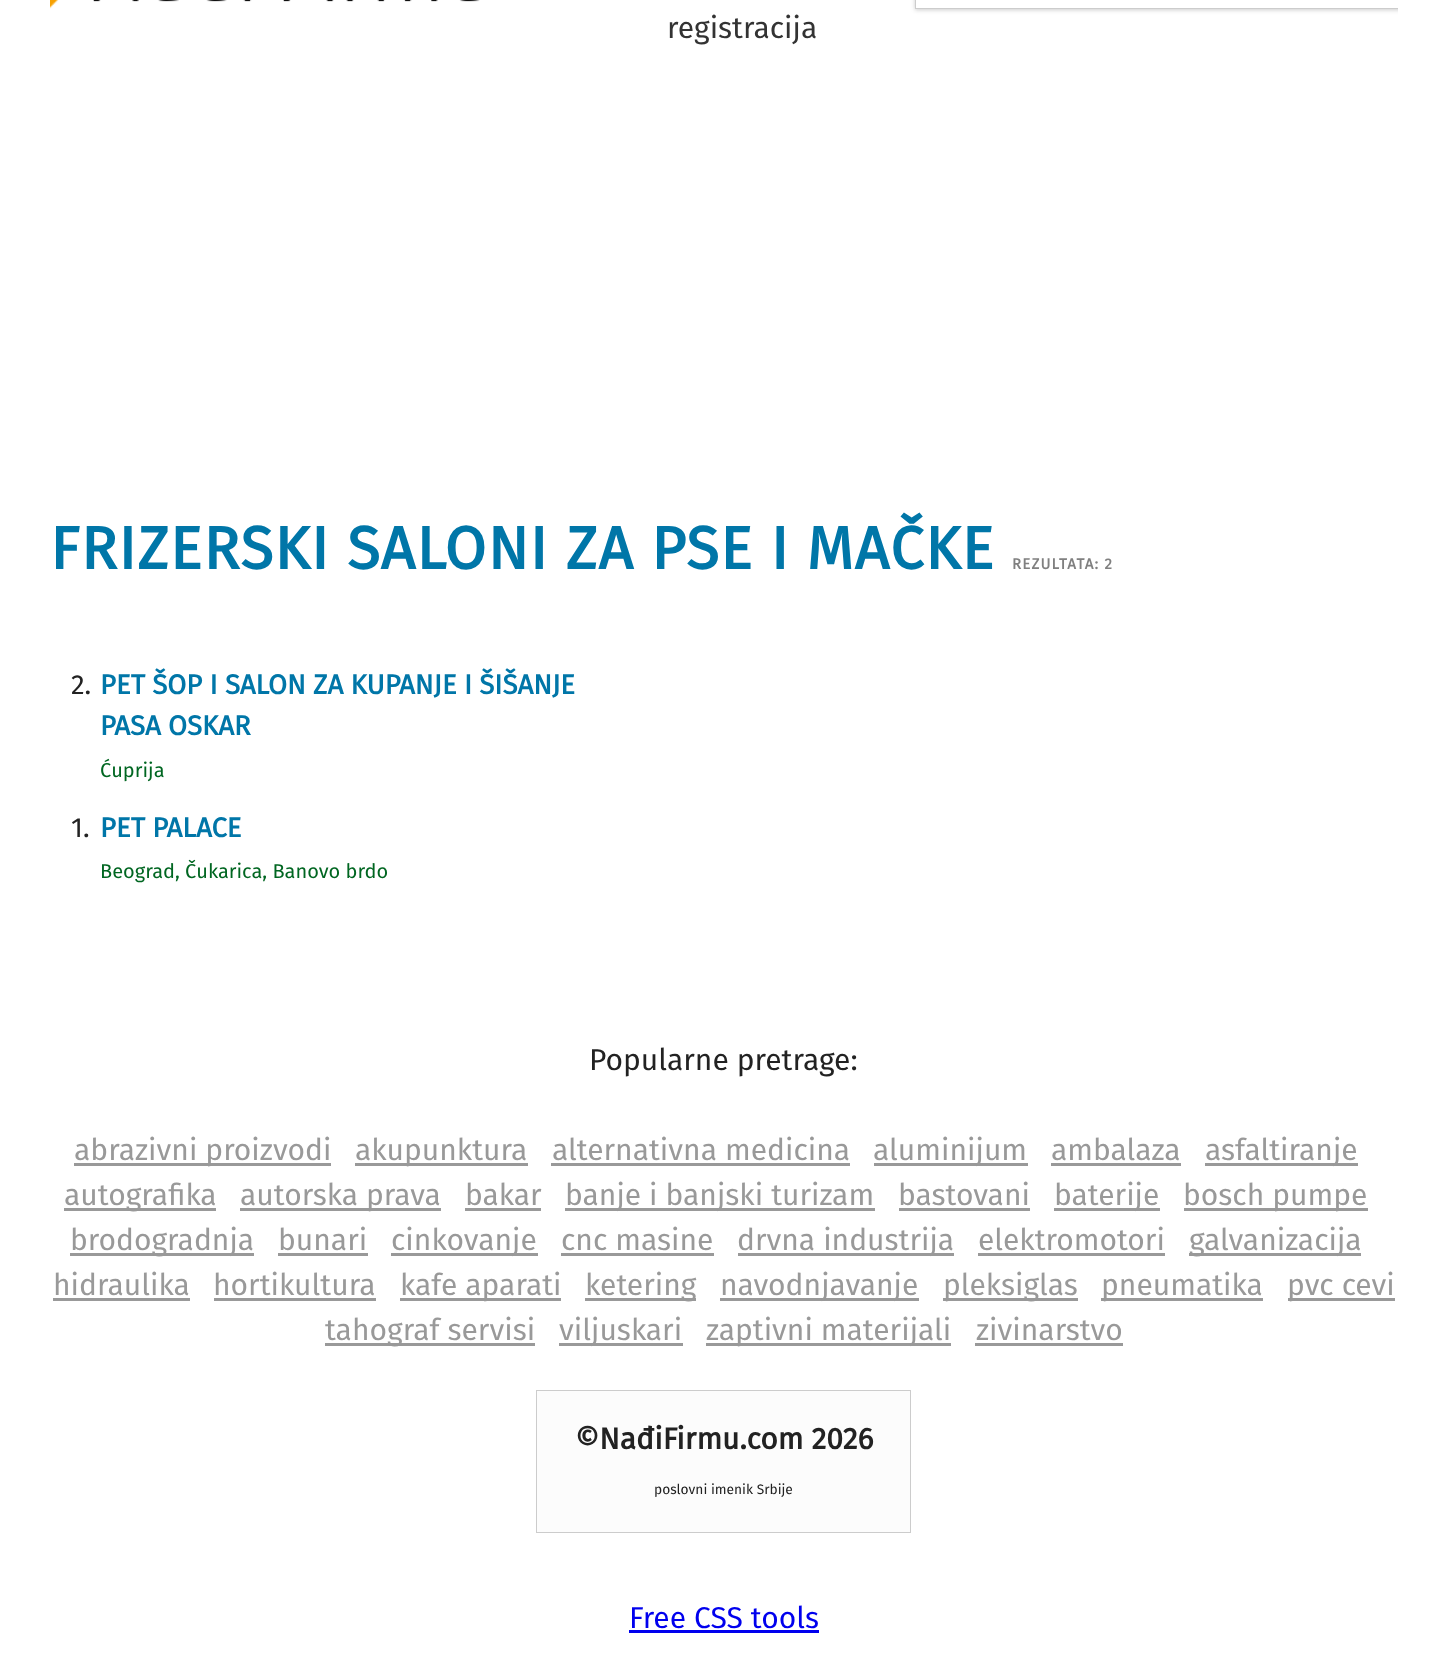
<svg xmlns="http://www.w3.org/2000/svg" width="1447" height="1675">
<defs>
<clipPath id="clip1"><rect x="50" y="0" width="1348" height="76"/></clipPath>
<clipPath id="clip2"><path d="M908 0h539v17h-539zm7-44h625v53h-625z" clip-rule="evenodd"/></clipPath>
<clipPath id="clip3"><rect x="50" width="1348" height="76"/></clipPath>
</defs>
<rect width="100%" height="100%" fill="#fff"/>
<image x="50" y="0" width="430" height="9" href="media/1.png"/>
<g clip-path="url(#clip1)">
<g clip-path="url(#clip2)">
<rect x="915" y="-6" width="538" height="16" fill="#00000033" filter="blur(2px)"/>
</g>
</g>
<g clip-path="url(#clip3)">
<rect x="915.5" y="-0.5" width="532" height="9" fill="none" stroke="#ccc"/>
</g>
<text x="667" y="38" style="font-family:Fira Sans;font-size:30px;fill:#333">registracija</text>
<text x="50" y="569" style="font-family:Fira Sans;font-size:60px;font-weight:bold;letter-spacing:1.25px;fill:#0076a8">FRIZERSKI SALONI ZA PSE I MAČKE</text>
<text x="1012" y="569" style="font-family:Fira Sans;font-size:15px;font-weight:bold;letter-spacing:1.25px;fill:#808080">REZULTATA: 2</text>
<text x="71" y="694" style="font-family:Fira Sans;font-size:27.5px;fill:#222">2.</text>
<text x="100" y="694" style="font-family:Fira Sans;font-size:27.5px;font-weight:bold;fill:#0076a8">PET ŠOP I SALON ZA KUPANJE I ŠIŠANJE</text>
<text x="100" y="735" style="font-family:Fira Sans;font-size:27.5px;font-weight:bold;fill:#0076a8">PASA OSKAR</text>
<text x="100" y="777" style="font-family:Fira Sans;font-size:20px;fill:#006621">Ćuprija</text>
<text x="71" y="837" style="font-family:Fira Sans;font-size:27.5px;fill:#222">1.</text>
<text x="100" y="837" style="font-family:Fira Sans;font-size:27.5px;font-weight:bold;fill:#0076a8">PET PALACE</text>
<text x="100" y="878" style="font-family:Fira Sans;font-size:20px;fill:#006621">Beograd, Čukarica, Banovo brdo</text>
<text x="589" y="1070" style="font-family:Fira Sans;font-size:30px;fill:#222">Popularne pretrage:</text>
<rect x="74" y="1163" width="257" height="3" fill="#999"/>
<text x="74" y="1160" style="font-family:Fira Sans;font-size:30px;fill:#999">abrazivni proizvodi</text>
<rect x="355" y="1163" width="173" height="3" fill="#999"/>
<text x="355" y="1160" style="font-family:Fira Sans;font-size:30px;fill:#999">akupunktura</text>
<text x="552" y="1160" style="font-family:Fira Sans;font-size:30px;fill:#999">alternativna medicina</text>
<rect x="551" y="1163" width="299" height="3" fill="#999"/>
<rect x="874" y="1163" width="154" height="3" fill="#999"/>
<text x="873" y="1160" style="font-family:Fira Sans;font-size:30px;fill:#999">aluminijum</text>
<text x="1051" y="1160" style="font-family:Fira Sans;font-size:30px;fill:#999">ambalaza</text>
<rect x="1051" y="1163" width="130" height="3" fill="#999"/>
<rect x="1205" y="1163" width="153" height="3" fill="#999"/>
<text x="1205" y="1160" style="font-family:Fira Sans;font-size:30px;fill:#999">asfaltiranje</text>
<rect x="64" y="1208" width="152" height="3" fill="#999"/>
<text x="64" y="1205" style="font-family:Fira Sans;font-size:30px;fill:#999">autografika</text>
<rect x="240" y="1208" width="201" height="3" fill="#999"/>
<text x="240" y="1205" style="font-family:Fira Sans;font-size:30px;fill:#999">autorska prava</text>
<text x="465" y="1205" style="font-family:Fira Sans;font-size:30px;fill:#999">bakar</text>
<rect x="465" y="1208" width="76" height="3" fill="#999"/>
<rect x="565" y="1208" width="310" height="3" fill="#999"/>
<text x="565" y="1205" style="font-family:Fira Sans;font-size:30px;fill:#999">banje i banjski turizam</text>
<text x="898" y="1205" style="font-family:Fira Sans;font-size:30px;fill:#999">bastovani</text>
<rect x="899" y="1208" width="131" height="3" fill="#999"/>
<rect x="1054" y="1208" width="106" height="3" fill="#999"/>
<text x="1054" y="1205" style="font-family:Fira Sans;font-size:30px;fill:#999">baterije</text>
<rect x="1184" y="1208" width="184" height="3" fill="#999"/>
<text x="1183" y="1205" style="font-family:Fira Sans;font-size:30px;fill:#999">bosch pumpe</text>
<rect x="70" y="1253" width="184" height="3" fill="#999"/>
<text x="70" y="1250" style="font-family:Fira Sans;font-size:30px;fill:#999">brodogradnja</text>
<text x="278" y="1250" style="font-family:Fira Sans;font-size:30px;fill:#999">bunari</text>
<rect x="278" y="1253" width="90" height="3" fill="#999"/>
<rect x="391" y="1253" width="147" height="3" fill="#999"/>
<text x="391" y="1250" style="font-family:Fira Sans;font-size:30px;fill:#999">cinkovanje</text>
<text x="561" y="1250" style="font-family:Fira Sans;font-size:30px;fill:#999">cnc masine</text>
<rect x="561" y="1253" width="153" height="3" fill="#999"/>
<rect x="738" y="1253" width="216" height="3" fill="#999"/>
<text x="737" y="1250" style="font-family:Fira Sans;font-size:30px;fill:#999">drvna industrija</text>
<text x="978" y="1250" style="font-family:Fira Sans;font-size:30px;fill:#999">elektromotori</text>
<rect x="978" y="1253" width="187" height="3" fill="#999"/>
<rect x="1189" y="1253" width="172" height="3" fill="#999"/>
<text x="1189" y="1250" style="font-family:Fira Sans;font-size:30px;fill:#999">galvanizacija</text>
<text x="53" y="1295" style="font-family:Fira Sans;font-size:30px;fill:#999">hidraulika</text>
<rect x="53" y="1298" width="137" height="3" fill="#999"/>
<text x="213" y="1295" style="font-family:Fira Sans;font-size:30px;fill:#999">hortikultura</text>
<rect x="214" y="1298" width="162" height="3" fill="#999"/>
<rect x="400" y="1298" width="161" height="3" fill="#999"/>
<text x="400" y="1295" style="font-family:Fira Sans;font-size:30px;fill:#999">kafe aparati</text>
<rect x="585" y="1298" width="111" height="3" fill="#999"/>
<text x="585" y="1295" style="font-family:Fira Sans;font-size:30px;fill:#999">ketering</text>
<rect x="720" y="1298" width="199" height="3" fill="#999"/>
<text x="720" y="1295" style="font-family:Fira Sans;font-size:30px;fill:#999">navodnjavanje</text>
<rect x="943" y="1298" width="135" height="3" fill="#999"/>
<text x="943" y="1295" style="font-family:Fira Sans;font-size:30px;fill:#999">pleksiglas</text>
<rect x="1101" y="1298" width="162" height="3" fill="#999"/>
<text x="1101" y="1295" style="font-family:Fira Sans;font-size:30px;fill:#999">pneumatika</text>
<rect x="1288" y="1298" width="107" height="3" fill="#999"/>
<text x="1287" y="1295" style="font-family:Fira Sans;font-size:30px;fill:#999">pvc cevi</text>
<rect x="325" y="1343" width="210" height="3" fill="#999"/>
<text x="325" y="1340" style="font-family:Fira Sans;font-size:30px;fill:#999">tahograf servisi</text>
<rect x="559" y="1343" width="124" height="3" fill="#999"/>
<text x="559" y="1340" style="font-family:Fira Sans;font-size:30px;fill:#999">viljuskari</text>
<rect x="706" y="1343" width="245" height="3" fill="#999"/>
<text x="706" y="1340" style="font-family:Fira Sans;font-size:30px;fill:#999">zaptivni materijali</text>
<text x="976" y="1340" style="font-family:Fira Sans;font-size:30px;fill:#999">zivinarstvo</text>
<rect x="975" y="1343" width="148" height="3" fill="#999"/>
<rect x="536.5" y="1390.5" width="374" height="142" fill="#fcfcfc" stroke="#ccc"/>
<text x="575" y="1449" style="font-family:Fira Sans;font-size:30px;font-weight:bold;fill:#222">©NađiFirmu.com 2026</text>
<text x="654" y="1494" style="font-family:Fira Sans;font-size:13.75px;fill:#222">poslovni imenik Srbije</text>
<text x="629" y="1628" style="font-family:Fira Sans;font-size:30px;fill:#00e">Free CSS tools</text>
<rect x="629" y="1630" width="190" height="3" fill="#00e"/>
</svg>
